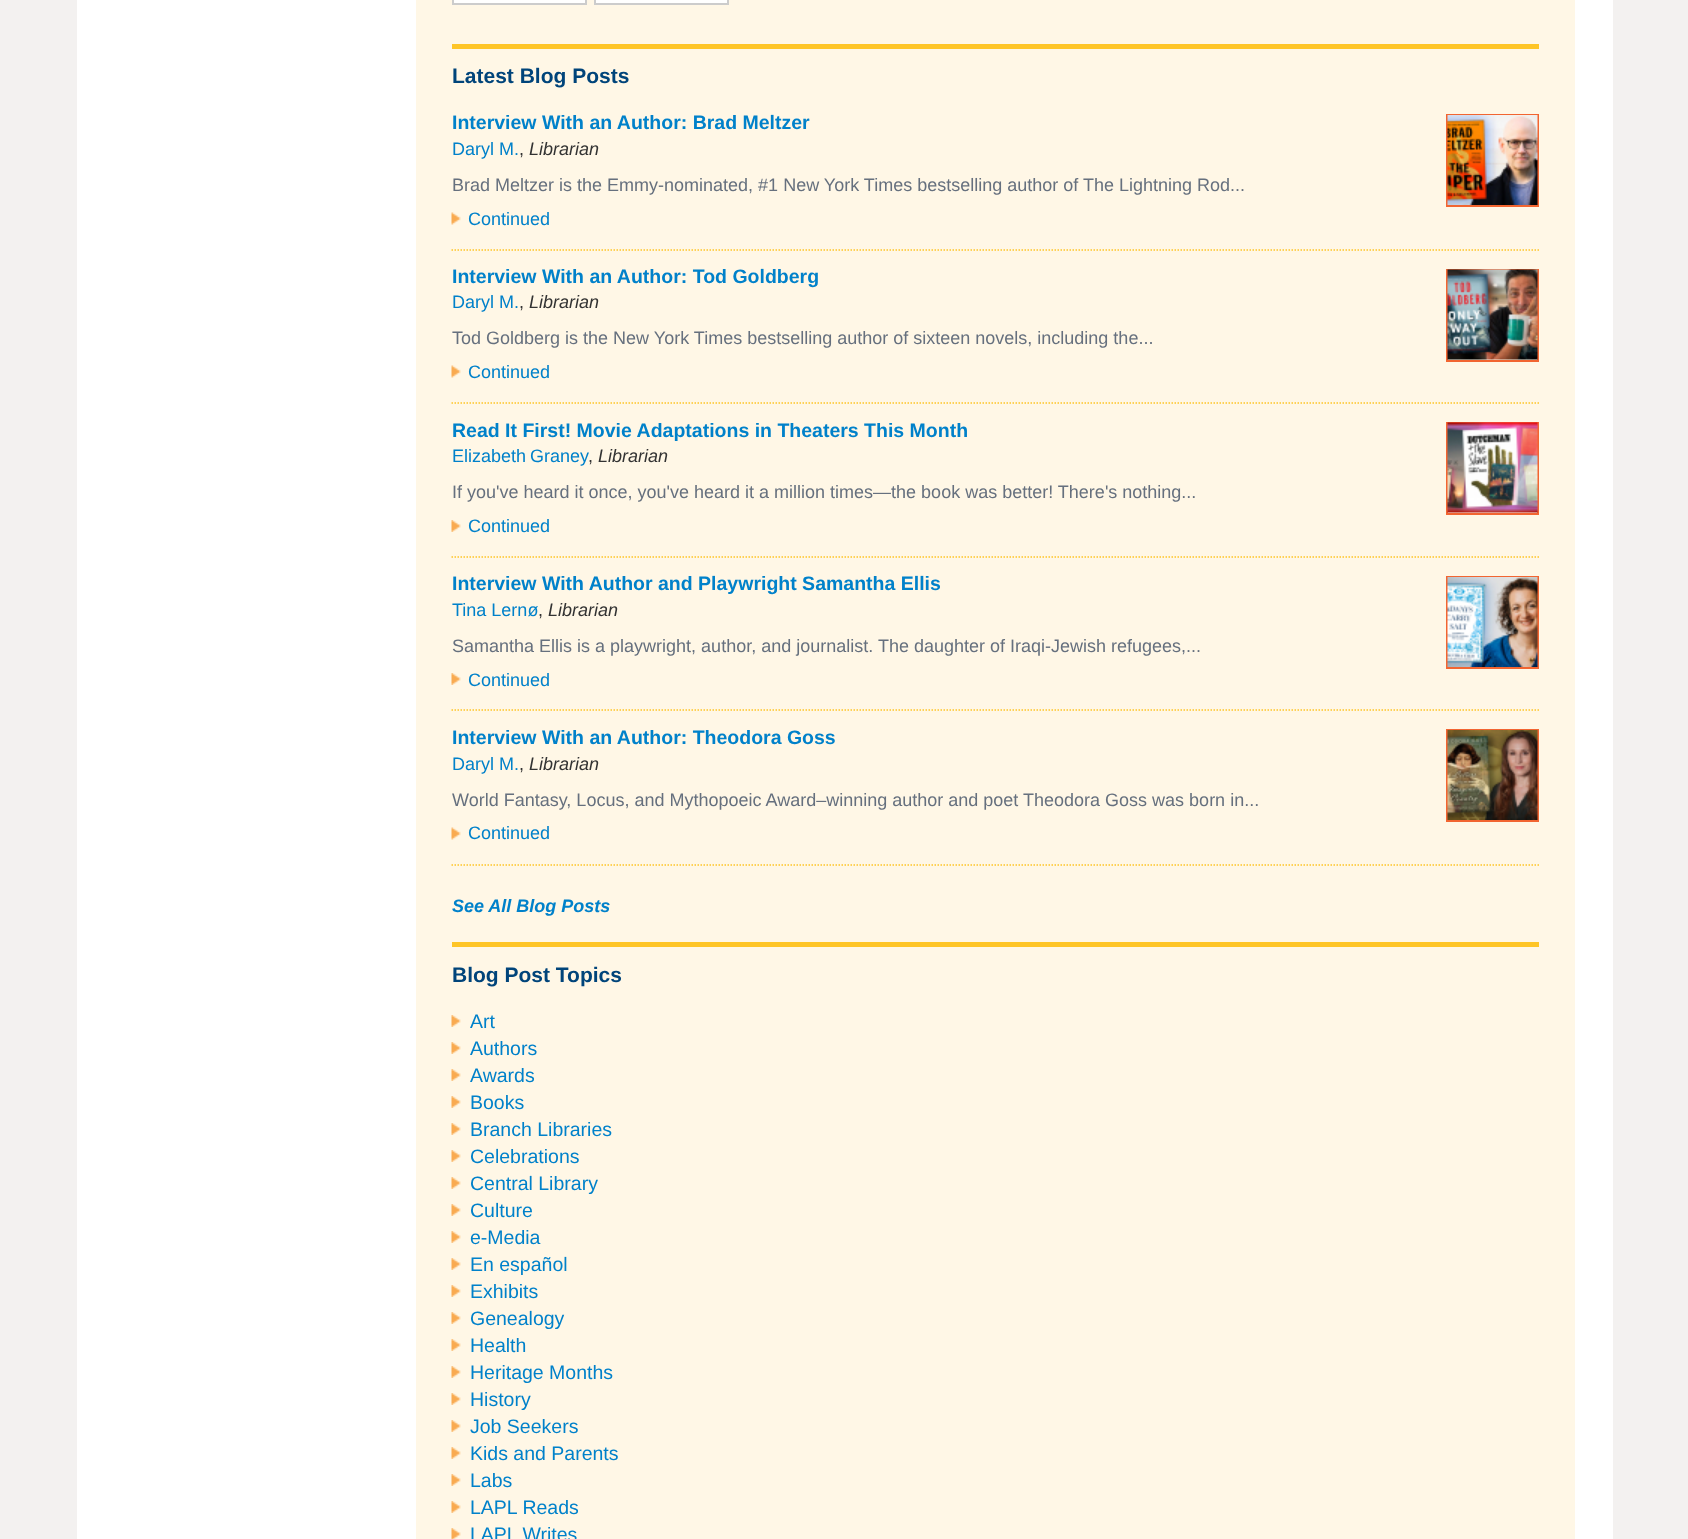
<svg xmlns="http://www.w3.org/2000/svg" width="1688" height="1539">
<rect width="100%" height="100%" fill="#f3f1f0"/>
<rect x="77" width="1536" height="1539" fill="#fff"/>
<rect x="416" width="1159" height="1539" fill="#fff7e6"/>
<rect x="453" y="-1" width="133" height="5" fill="#fff" stroke="#ccc" stroke-width="2"/>
<rect x="595" y="-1" width="133" height="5" fill="#fff" stroke="#ccc" stroke-width="2"/>
<rect x="452" y="44" width="1087" height="5" fill="#fec527"/>
<text x="452" y="83" style="font-family:Liberation Sans;font-size:21px;font-weight:bold;fill:#00447a">Latest Blog Posts</text>
<text x="452" y="129" style="font-family:Liberation Sans;font-size:19.5px;font-weight:bold;fill:#0081ca">Interview With an Author: Brad Meltzer</text>
<rect x="1447" y="115" width="91" height="91" fill="none" stroke="#f26531" stroke-width="2"/>
<image x="1447" y="115" width="91" height="90" href="media/1.png"/>
<text x="452" y="155" style="font-family:Liberation Sans;font-size:18px;fill:#0081ca">Daryl M.</text>
<text x="519" y="155" style="font-family:Liberation Sans;font-size:18px;fill:#333">,</text>
<text x="529" y="155" style="font-family:Liberation Sans;font-size:18px;font-style:italic;fill:#333">Librarian</text>
<text x="452" y="191" style="font-family:Liberation Sans;font-size:18px;fill:#66707e">Brad Meltzer is the Emmy-nominated, #1 New York Times bestselling author of The Lightning Rod...</text>
<image x="451" y="212" width="10" height="13" href="media/2.png"/>
<text x="468" y="225" style="font-family:Liberation Sans;font-size:18px;fill:#0081ca">Continued</text>
<path d="M451.5 250h1087.5" fill="none" stroke="#fec527" stroke-width="1.5" stroke-dasharray="1.5 1.5"/>
<text x="452" y="283" style="font-family:Liberation Sans;font-size:19.5px;font-weight:bold;fill:#0081ca">Interview With an Author: Tod Goldberg</text>
<rect x="1447" y="270" width="91" height="91" fill="none" stroke="#f26531" stroke-width="2"/>
<image x="1447" y="269" width="91" height="91" href="media/3.png"/>
<text x="452" y="308" style="font-family:Liberation Sans;font-size:18px;fill:#0081ca">Daryl M.</text>
<text x="519" y="308" style="font-family:Liberation Sans;font-size:18px;fill:#333">,</text>
<text x="529" y="308" style="font-family:Liberation Sans;font-size:18px;font-style:italic;fill:#333">Librarian</text>
<text x="452" y="344" style="font-family:Liberation Sans;font-size:18px;fill:#66707e">Tod Goldberg is the New York Times bestselling author of sixteen novels, including the...</text>
<image x="451" y="365" width="10" height="13" href="media/2.png"/>
<text x="468" y="378" style="font-family:Liberation Sans;font-size:18px;fill:#0081ca">Continued</text>
<path d="M451.5 403h1087.5" fill="none" stroke="#fec527" stroke-width="1.5" stroke-dasharray="1.5 1.5"/>
<text x="452" y="437" style="font-family:Liberation Sans;font-size:19.5px;font-weight:bold;fill:#0081ca">Read It First! Movie Adaptations in Theaters This Month</text>
<rect x="1447" y="423" width="91" height="91" fill="none" stroke="#f26531" stroke-width="2"/>
<image x="1447" y="422" width="91" height="91" href="media/4.png"/>
<text x="452" y="462" word-spacing="-1" style="font-family:Liberation Sans;font-size:18px;fill:#0081ca">Elizabeth Graney</text>
<text x="588" y="462" style="font-family:Liberation Sans;font-size:18px;fill:#333">,</text>
<text x="598" y="462" style="font-family:Liberation Sans;font-size:18px;font-style:italic;fill:#333">Librarian</text>
<text x="452" y="498" style="font-family:Liberation Sans;font-size:18px;fill:#66707e">If you've heard it once, you've heard it a million times—the book was better! There's nothing...</text>
<image x="451" y="520" width="10" height="12" href="media/5.png"/>
<text x="468" y="532" style="font-family:Liberation Sans;font-size:18px;fill:#0081ca">Continued</text>
<path d="M451.5 557h1087.5" fill="none" stroke="#fec527" stroke-width="1.5" stroke-dasharray="1.5 1.5"/>
<text x="452" y="590" style="font-family:Liberation Sans;font-size:19.5px;font-weight:bold;fill:#0081ca">Interview With Author and Playwright Samantha Ellis</text>
<rect x="1447" y="577" width="91" height="91" fill="none" stroke="#f26531" stroke-width="2"/>
<image x="1447" y="577" width="91" height="90" href="media/6.png"/>
<text x="452" y="616" style="font-family:Liberation Sans;font-size:18px;fill:#0081ca">Tina Lernø</text>
<text x="538" y="616" style="font-family:Liberation Sans;font-size:18px;fill:#333">,</text>
<text x="548" y="616" style="font-family:Liberation Sans;font-size:18px;font-style:italic;fill:#333">Librarian</text>
<text x="452" y="652" style="font-family:Liberation Sans;font-size:18px;fill:#66707e">Samantha Ellis is a playwright, author, and journalist. The daughter of Iraqi-Jewish refugees,...</text>
<image x="451" y="673" width="10" height="12" href="media/5.png"/>
<text x="468" y="686" style="font-family:Liberation Sans;font-size:18px;fill:#0081ca">Continued</text>
<path d="M451.5 710h1087.5" fill="none" stroke="#fec527" stroke-width="1.5" stroke-dasharray="1.5 1.5"/>
<text x="452" y="744" style="font-family:Liberation Sans;font-size:19.5px;font-weight:bold;fill:#0081ca">Interview With an Author: Theodora Goss</text>
<rect x="1447" y="730" width="91" height="91" fill="none" stroke="#f26531" stroke-width="2"/>
<image x="1447" y="730" width="91" height="90" href="media/7.png"/>
<text x="452" y="770" style="font-family:Liberation Sans;font-size:18px;fill:#0081ca">Daryl M.</text>
<text x="519" y="770" style="font-family:Liberation Sans;font-size:18px;fill:#333">,</text>
<text x="529" y="770" style="font-family:Liberation Sans;font-size:18px;font-style:italic;fill:#333">Librarian</text>
<text x="452" y="806" style="font-family:Liberation Sans;font-size:18px;fill:#66707e">World Fantasy, Locus, and Mythopoeic Award–winning author and poet Theodora Goss was born in...</text>
<image x="451" y="827" width="10" height="13" href="media/2.png"/>
<text x="468" y="839" style="font-family:Liberation Sans;font-size:18px;fill:#0081ca">Continued</text>
<path d="M451.5 865h1087.5" fill="none" stroke="#fec527" stroke-width="1.5" stroke-dasharray="1.5 1.5"/>
<text x="452" y="912" style="font-family:Liberation Sans;font-size:18px;font-weight:bold;font-style:italic;fill:#0081ca">See All Blog Posts</text>
<rect x="452" y="942" width="1087" height="5" fill="#fec527"/>
<text x="452" y="982" style="font-family:Liberation Sans;font-size:21px;font-weight:bold;fill:#00447a">Blog Post Topics</text>
<image x="451" y="1015" width="10" height="12" href="media/5.png"/>
<text x="470" y="1028" style="font-family:Liberation Sans;font-size:19.5px;fill:#0081ca">Art</text>
<image x="451" y="1042" width="10" height="12" href="media/5.png"/>
<text x="470" y="1055" style="font-family:Liberation Sans;font-size:19.5px;fill:#0081ca">Authors</text>
<image x="451" y="1069" width="10" height="12" href="media/5.png"/>
<text x="470" y="1082" style="font-family:Liberation Sans;font-size:19.5px;fill:#0081ca">Awards</text>
<image x="451" y="1096" width="10" height="12" href="media/5.png"/>
<text x="470" y="1109" style="font-family:Liberation Sans;font-size:19.5px;fill:#0081ca">Books</text>
<image x="451" y="1123" width="10" height="12" href="media/5.png"/>
<text x="470" y="1136" style="font-family:Liberation Sans;font-size:19.5px;fill:#0081ca">Branch Libraries</text>
<image x="451" y="1150" width="10" height="12" href="media/5.png"/>
<text x="470" y="1163" style="font-family:Liberation Sans;font-size:19.5px;fill:#0081ca">Celebrations</text>
<image x="451" y="1177" width="10" height="12" href="media/5.png"/>
<text x="470" y="1190" style="font-family:Liberation Sans;font-size:19.5px;fill:#0081ca">Central Library</text>
<image x="451" y="1204" width="10" height="12" href="media/5.png"/>
<text x="470" y="1217" style="font-family:Liberation Sans;font-size:19.5px;fill:#0081ca">Culture</text>
<image x="451" y="1231" width="10" height="12" href="media/5.png"/>
<text x="470" y="1244" style="font-family:Liberation Sans;font-size:19.5px;fill:#0081ca">e-Media</text>
<image x="451" y="1258" width="10" height="12" href="media/5.png"/>
<text x="470" y="1271" style="font-family:Liberation Sans;font-size:19.5px;fill:#0081ca">En español</text>
<image x="451" y="1285" width="10" height="12" href="media/5.png"/>
<text x="470" y="1298" style="font-family:Liberation Sans;font-size:19.5px;fill:#0081ca">Exhibits</text>
<image x="451" y="1312" width="10" height="12" href="media/5.png"/>
<text x="470" y="1325" style="font-family:Liberation Sans;font-size:19.5px;fill:#0081ca">Genealogy</text>
<image x="451" y="1339" width="10" height="12" href="media/5.png"/>
<text x="470" y="1352" style="font-family:Liberation Sans;font-size:19.5px;fill:#0081ca">Health</text>
<image x="451" y="1366" width="10" height="12" href="media/5.png"/>
<text x="470" y="1379" style="font-family:Liberation Sans;font-size:19.5px;fill:#0081ca">Heritage Months</text>
<image x="451" y="1393" width="10" height="12" href="media/5.png"/>
<text x="470" y="1406" style="font-family:Liberation Sans;font-size:19.5px;fill:#0081ca">History</text>
<image x="451" y="1420" width="10" height="12" href="media/5.png"/>
<text x="470" y="1433" style="font-family:Liberation Sans;font-size:19.5px;fill:#0081ca">Job Seekers</text>
<image x="451" y="1447" width="10" height="12" href="media/5.png"/>
<text x="470" y="1460" style="font-family:Liberation Sans;font-size:19.5px;fill:#0081ca">Kids and Parents</text>
<image x="451" y="1474" width="10" height="12" href="media/5.png"/>
<text x="470" y="1487" style="font-family:Liberation Sans;font-size:19.5px;fill:#0081ca">Labs</text>
<image x="451" y="1501" width="10" height="12" href="media/5.png"/>
<text x="470" y="1514" style="font-family:Liberation Sans;font-size:19.5px;fill:#0081ca">LAPL Reads</text>
<image x="451" y="1528" width="10" height="11" href="media/8.png"/>
<text x="470" y="1541" style="font-family:Liberation Sans;font-size:19.5px;fill:#0081ca">LAPL Writes</text>
</svg>
